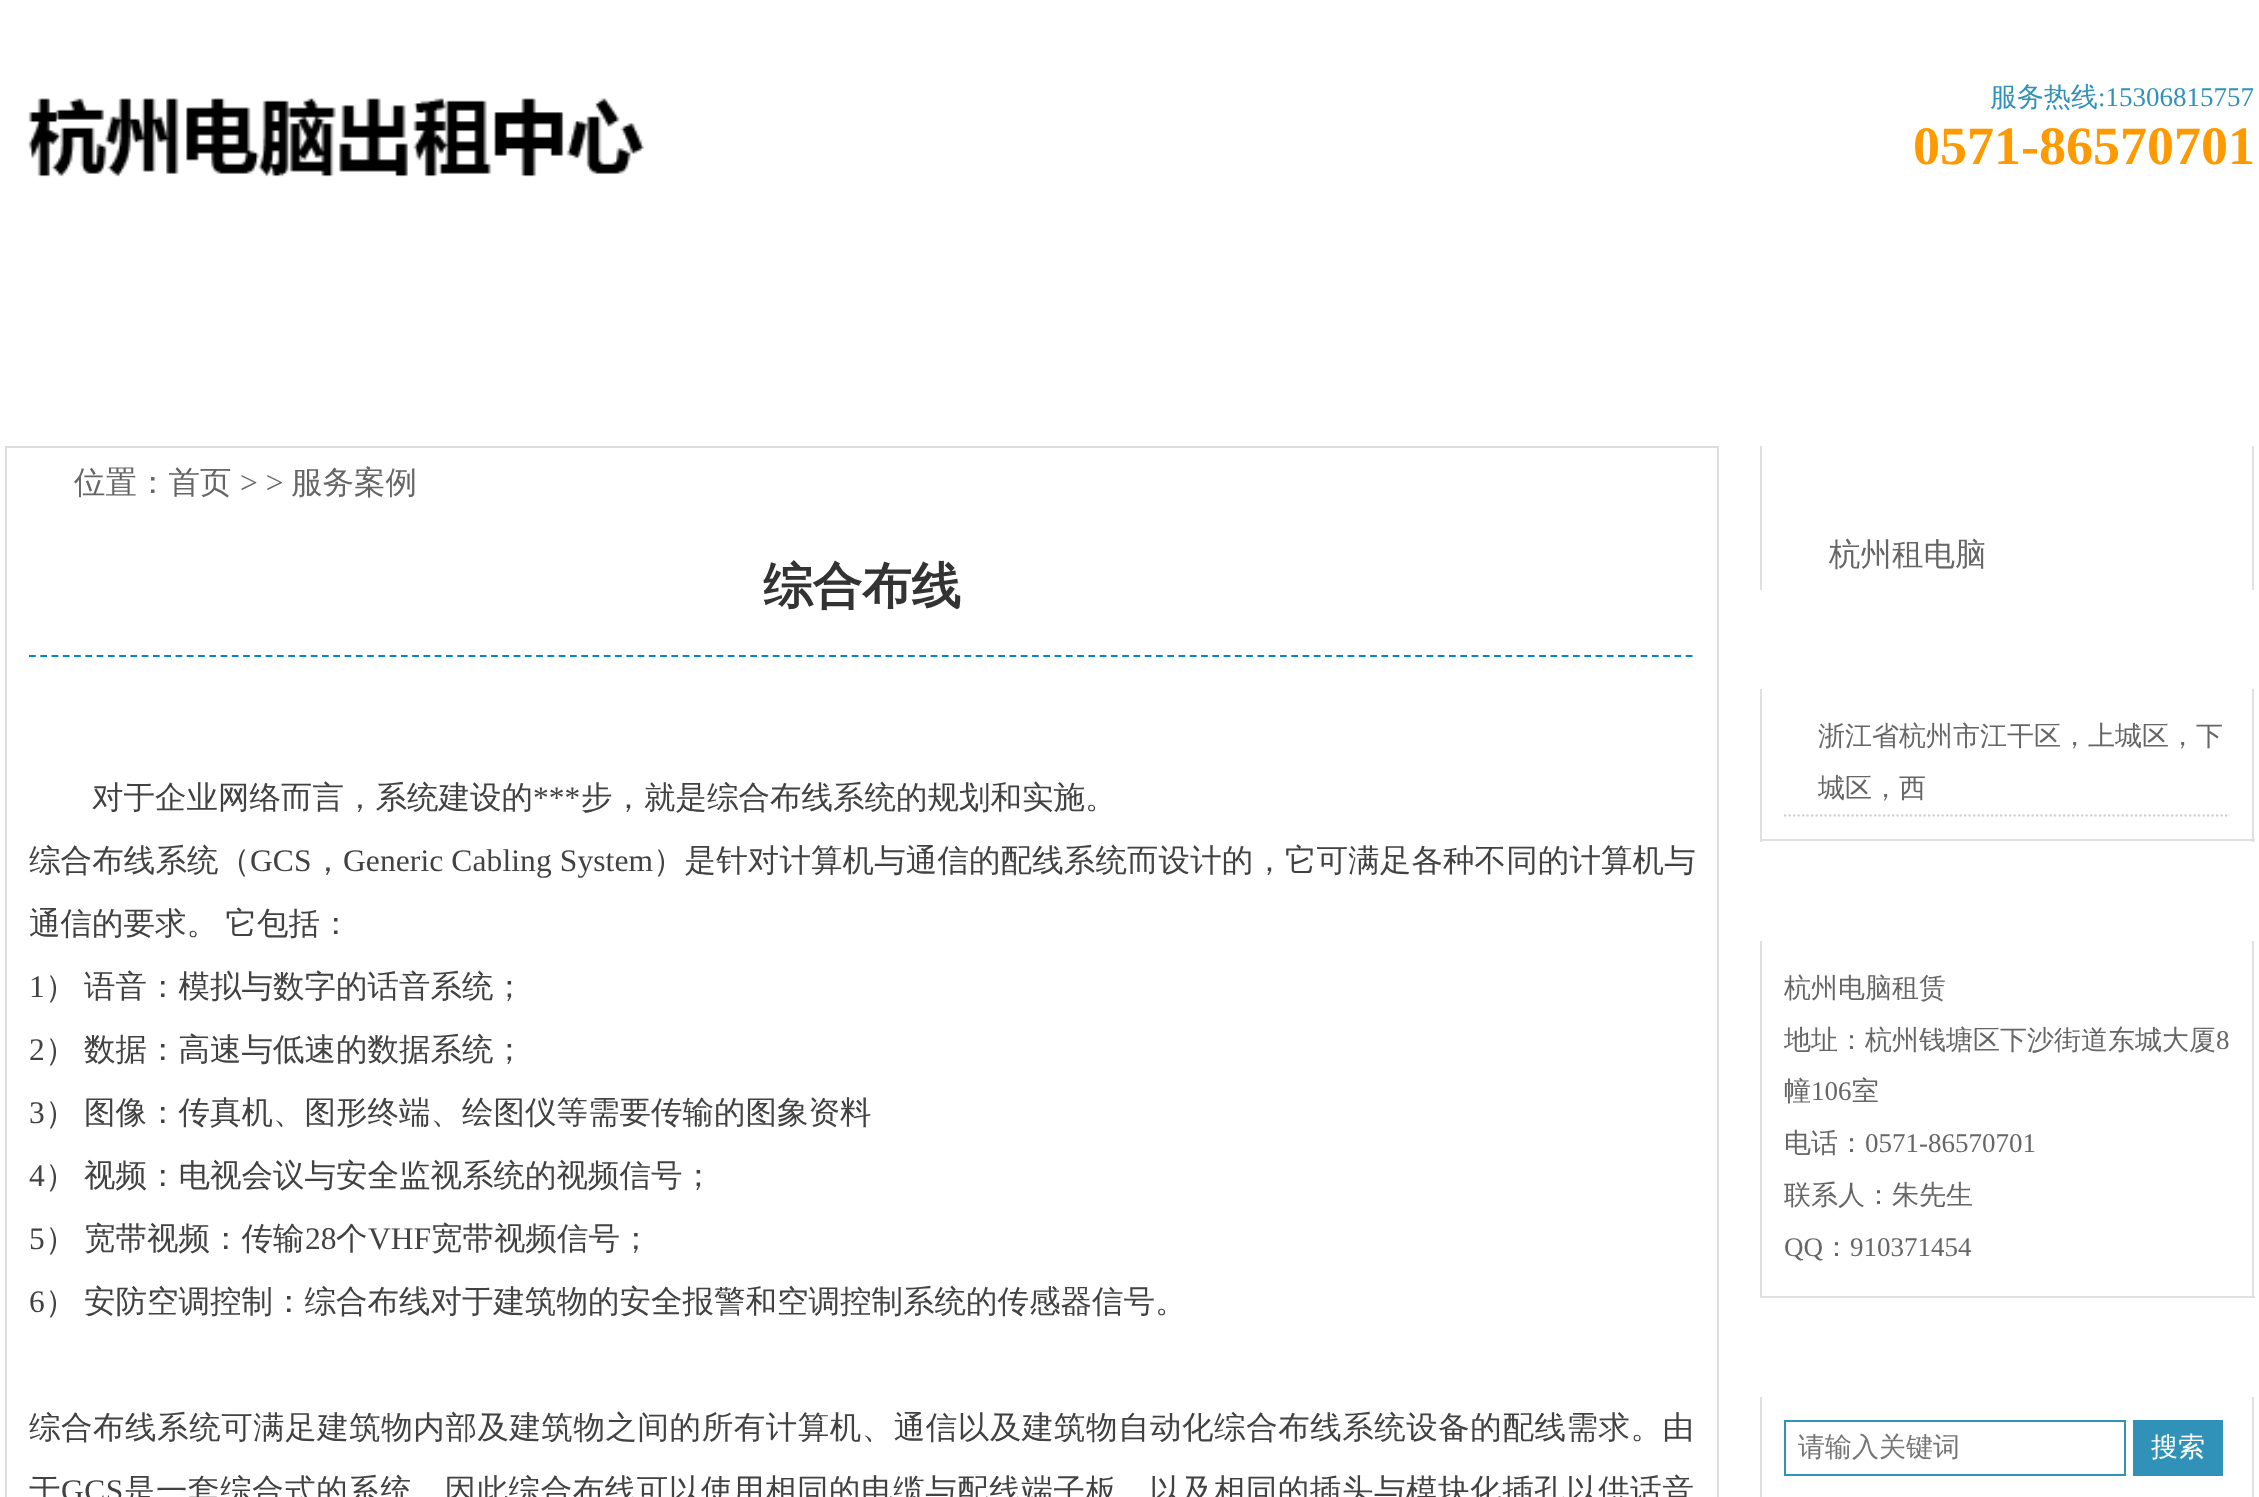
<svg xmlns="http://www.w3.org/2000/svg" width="2259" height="1497">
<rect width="100%" height="100%" fill="#fff"/>
<image x="28" y="98" width="617" height="79" href="media/1.png"/>
<text x="1990" y="106" style="font-family:WenQuanYi Zen Hei;font-size:27px;font-weight:500;fill:#3092b9">服务热线</text>
<text x="2098" y="106" style="font-family:Liberation Serif;font-size:27px;fill:#3092b9">:15306815757</text>
<text x="1913" y="164" style="font-family:Liberation Serif;font-size:54px;font-weight:bold;fill:#f90">0571-86570701</text>
<rect x="6" y="447" width="1712" height="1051" fill="none" stroke="#ddd" stroke-width="2"/>
<text x="74" y="493" style="font-family:WenQuanYi Zen Hei;font-size:31.5px;font-weight:500;fill:#666">位置：首页</text>
<text x="240" y="493" style="font-family:Liberation Serif;font-size:31.5px;fill:#666">&gt; &gt;</text>
<text x="291" y="493" style="font-family:WenQuanYi Zen Hei;font-size:31.5px;font-weight:500;fill:#666">服务案例</text>
<path d="M29 656h1665" fill="none" stroke="#0187ce" stroke-width="2.2" stroke-dasharray="6.75 4.52"/>
<text x="763" y="603" style="font-family:WenQuanYi Zen Hei;font-size:49.5px;font-weight:bold;fill:#333">综合布线</text>
<text x="92" y="808" style="font-family:WenQuanYi Zen Hei;font-size:31.5px;font-weight:500;fill:#424242">对于企业网络而言，系统建设的</text>
<text x="533" y="808" style="font-family:Liberation Serif;font-size:31.5px;fill:#424242">***</text>
<text x="581" y="808" style="font-family:WenQuanYi Zen Hei;font-size:31.5px;font-weight:500;fill:#424242">步，就是综合布线系统的规划和实施。</text>
<text x="29" y="871" style="font-family:WenQuanYi Zen Hei;font-size:31.5px;font-weight:500;letter-spacing:0.1px;fill:#424242">综合布线系统（</text>
<text x="250" y="871" style="font-family:Liberation Serif;font-size:31.5px;letter-spacing:0.1px;fill:#424242">GCS</text>
<text x="312" y="871" style="font-family:WenQuanYi Zen Hei;font-size:31.5px;font-weight:500;letter-spacing:0.1px;fill:#424242">，</text>
<text x="343" y="871" style="font-family:Liberation Serif;font-size:31.5px;letter-spacing:0.1px;fill:#424242">Generic Cabling System</text>
<text x="653" y="871" style="font-family:WenQuanYi Zen Hei;font-size:31.5px;font-weight:500;letter-spacing:0.1px;fill:#424242">）是针对计算机与通信的配线系统而设计的，它可满足各种不同的计算机与</text>
<text x="29" y="934" word-spacing="-2" style="font-family:WenQuanYi Zen Hei;font-size:31.5px;font-weight:500;fill:#424242">通信的要求。 它包括：</text>
<text x="29" y="997" style="font-family:Liberation Serif;font-size:31.5px;fill:#424242">1</text>
<text x="45" y="997" word-spacing="-2" style="font-family:WenQuanYi Zen Hei;font-size:31.5px;font-weight:500;fill:#424242">） 语音：模拟与数字的话音系统；</text>
<text x="29" y="1060" style="font-family:Liberation Serif;font-size:31.5px;fill:#424242">2</text>
<text x="45" y="1060" word-spacing="-2" style="font-family:WenQuanYi Zen Hei;font-size:31.5px;font-weight:500;fill:#424242">） 数据：高速与低速的数据系统；</text>
<text x="29" y="1123" style="font-family:Liberation Serif;font-size:31.5px;fill:#424242">3</text>
<text x="45" y="1123" word-spacing="-2" style="font-family:WenQuanYi Zen Hei;font-size:31.5px;font-weight:500;fill:#424242">） 图像：传真机、图形终端、绘图仪等需要传输的图象资料</text>
<text x="29" y="1186" style="font-family:Liberation Serif;font-size:31.5px;fill:#424242">4</text>
<text x="45" y="1186" word-spacing="-2" style="font-family:WenQuanYi Zen Hei;font-size:31.5px;font-weight:500;fill:#424242">） 视频：电视会议与安全监视系统的视频信</text>
<text x="651" y="1186" style="font-family:WenQuanYi Zen Hei;font-size:31.5px;font-weight:500;fill:#424242">号；</text>
<text x="29" y="1249" style="font-family:Liberation Serif;font-size:31.5px;fill:#424242">5</text>
<text x="45" y="1249" word-spacing="-2" style="font-family:WenQuanYi Zen Hei;font-size:31.5px;font-weight:500;fill:#424242">） 宽带视频：传输</text>
<text x="305" y="1249" style="font-family:Liberation Serif;font-size:31.5px;fill:#424242">28</text>
<text x="336" y="1249" style="font-family:WenQuanYi Zen Hei;font-size:31.5px;font-weight:500;fill:#424242">个</text>
<text x="368" y="1249" style="font-family:Liberation Serif;font-size:31.5px;fill:#424242">VHF</text>
<text x="431" y="1249" style="font-family:WenQuanYi Zen Hei;font-size:31.5px;font-weight:500;fill:#424242">宽带视频信号；</text>
<text x="29" y="1312" style="font-family:Liberation Serif;font-size:31.5px;fill:#424242">6</text>
<text x="45" y="1312" word-spacing="-2" style="font-family:WenQuanYi Zen Hei;font-size:31.5px;font-weight:500;fill:#424242">） 安防空调控制：综合布线对于建筑物的安全报警和空调控制系统的传感器信号。</text>
<text x="29" y="1438" style="font-family:WenQuanYi Zen Hei;font-size:31.5px;font-weight:500;letter-spacing:0.53px;fill:#424242">综合布线系统可满足建筑物内部及建筑物之间的所有计算机、通信以及建筑物自动化综合布线系统设备的配线需求。由</text>
<text x="29" y="1501" style="font-family:WenQuanYi Zen Hei;font-size:31.5px;font-weight:500;letter-spacing:0.55px;fill:#424242">于</text>
<text x="61" y="1501" style="font-family:Liberation Serif;font-size:31.5px;letter-spacing:0.55px;fill:#424242">GCS</text>
<text x="124" y="1501" style="font-family:WenQuanYi Zen Hei;font-size:31.5px;font-weight:500;letter-spacing:0.55px;fill:#424242">是一套综合式的系统，因此综合布线可以使用相同的电缆与配线端子板，以及相同的插头与模块化插孔以供话音</text>
<rect x="2252" y="446" width="2" height="144" fill="#e0e0e0"/>
<rect x="1760" y="446" width="2" height="144" fill="#e0e0e0"/>
<text x="1829" y="565" style="font-family:WenQuanYi Zen Hei;font-size:31.5px;font-weight:500;fill:#666">杭州租电脑</text>
<rect x="2252" y="689" width="2" height="153" fill="#e0e0e0"/>
<rect x="1760" y="839" width="495" height="2" fill="#e0e0e0"/>
<rect x="1760" y="689" width="2" height="153" fill="#e0e0e0"/>
<path d="M1784 815.5h446" fill="none" stroke="#ccc" stroke-width="2.2" stroke-dasharray="2.25 2.25"/>
<text x="1818" y="745" style="font-family:WenQuanYi Zen Hei;font-size:27px;font-weight:500;fill:#666">浙江省杭州市江干区，上城区，下</text>
<text x="1818" y="797" style="font-family:WenQuanYi Zen Hei;font-size:27px;font-weight:500;fill:#666">城区，西</text>
<rect x="2252" y="941" width="2" height="357" fill="#e0e0e0"/>
<rect x="1760" y="1296" width="495" height="2" fill="#e0e0e0"/>
<rect x="1760" y="941" width="2" height="357" fill="#e0e0e0"/>
<text x="1784" y="997" style="font-family:WenQuanYi Zen Hei;font-size:27px;font-weight:500;fill:#666">杭州电脑租赁</text>
<text x="1784" y="1049" style="font-family:WenQuanYi Zen Hei;font-size:27px;font-weight:500;fill:#666">地址：杭州钱塘区下沙街道东城大厦</text>
<text x="2216" y="1049" style="font-family:Liberation Serif;font-size:27px;fill:#666">8</text>
<text x="1784" y="1100" style="font-family:WenQuanYi Zen Hei;font-size:27px;font-weight:500;fill:#666">幢</text>
<text x="1811" y="1100" style="font-family:Liberation Serif;font-size:27px;fill:#666">106</text>
<text x="1852" y="1100" style="font-family:WenQuanYi Zen Hei;font-size:27px;font-weight:500;fill:#666">室</text>
<text x="1784" y="1152" style="font-family:WenQuanYi Zen Hei;font-size:27px;font-weight:500;fill:#666">电话：</text>
<text x="1865" y="1152" style="font-family:Liberation Serif;font-size:27px;fill:#666">0571-86570701</text>
<text x="1784" y="1204" style="font-family:WenQuanYi Zen Hei;font-size:27px;font-weight:500;fill:#666">联系人：朱先生</text>
<text x="1784" y="1256" style="font-family:Liberation Serif;font-size:27px;fill:#666">QQ</text>
<text x="1823" y="1256" style="font-family:WenQuanYi Zen Hei;font-size:27px;font-weight:500;fill:#666">：</text>
<text x="1850" y="1256" style="font-family:Liberation Serif;font-size:27px;fill:#666">910371454</text>
<rect x="2252" y="1397" width="2" height="100" fill="#e0e0e0"/>
<rect x="1760" y="1397" width="2" height="100" fill="#e0e0e0"/>
<rect x="1785" y="1421" width="340" height="54" fill="none" stroke="#3092b9" stroke-width="2"/>
<text x="1798" y="1456" style="font-family:WenQuanYi Zen Hei;font-size:27px;font-weight:500;fill:#757575">请输入关键词</text>
<rect x="2133" y="1420" width="90" height="56" fill="#3092b9"/>
<text x="2151" y="1456" style="font-family:WenQuanYi Zen Hei;font-size:27px;font-weight:500;fill:#fff">搜索</text>
</svg>
